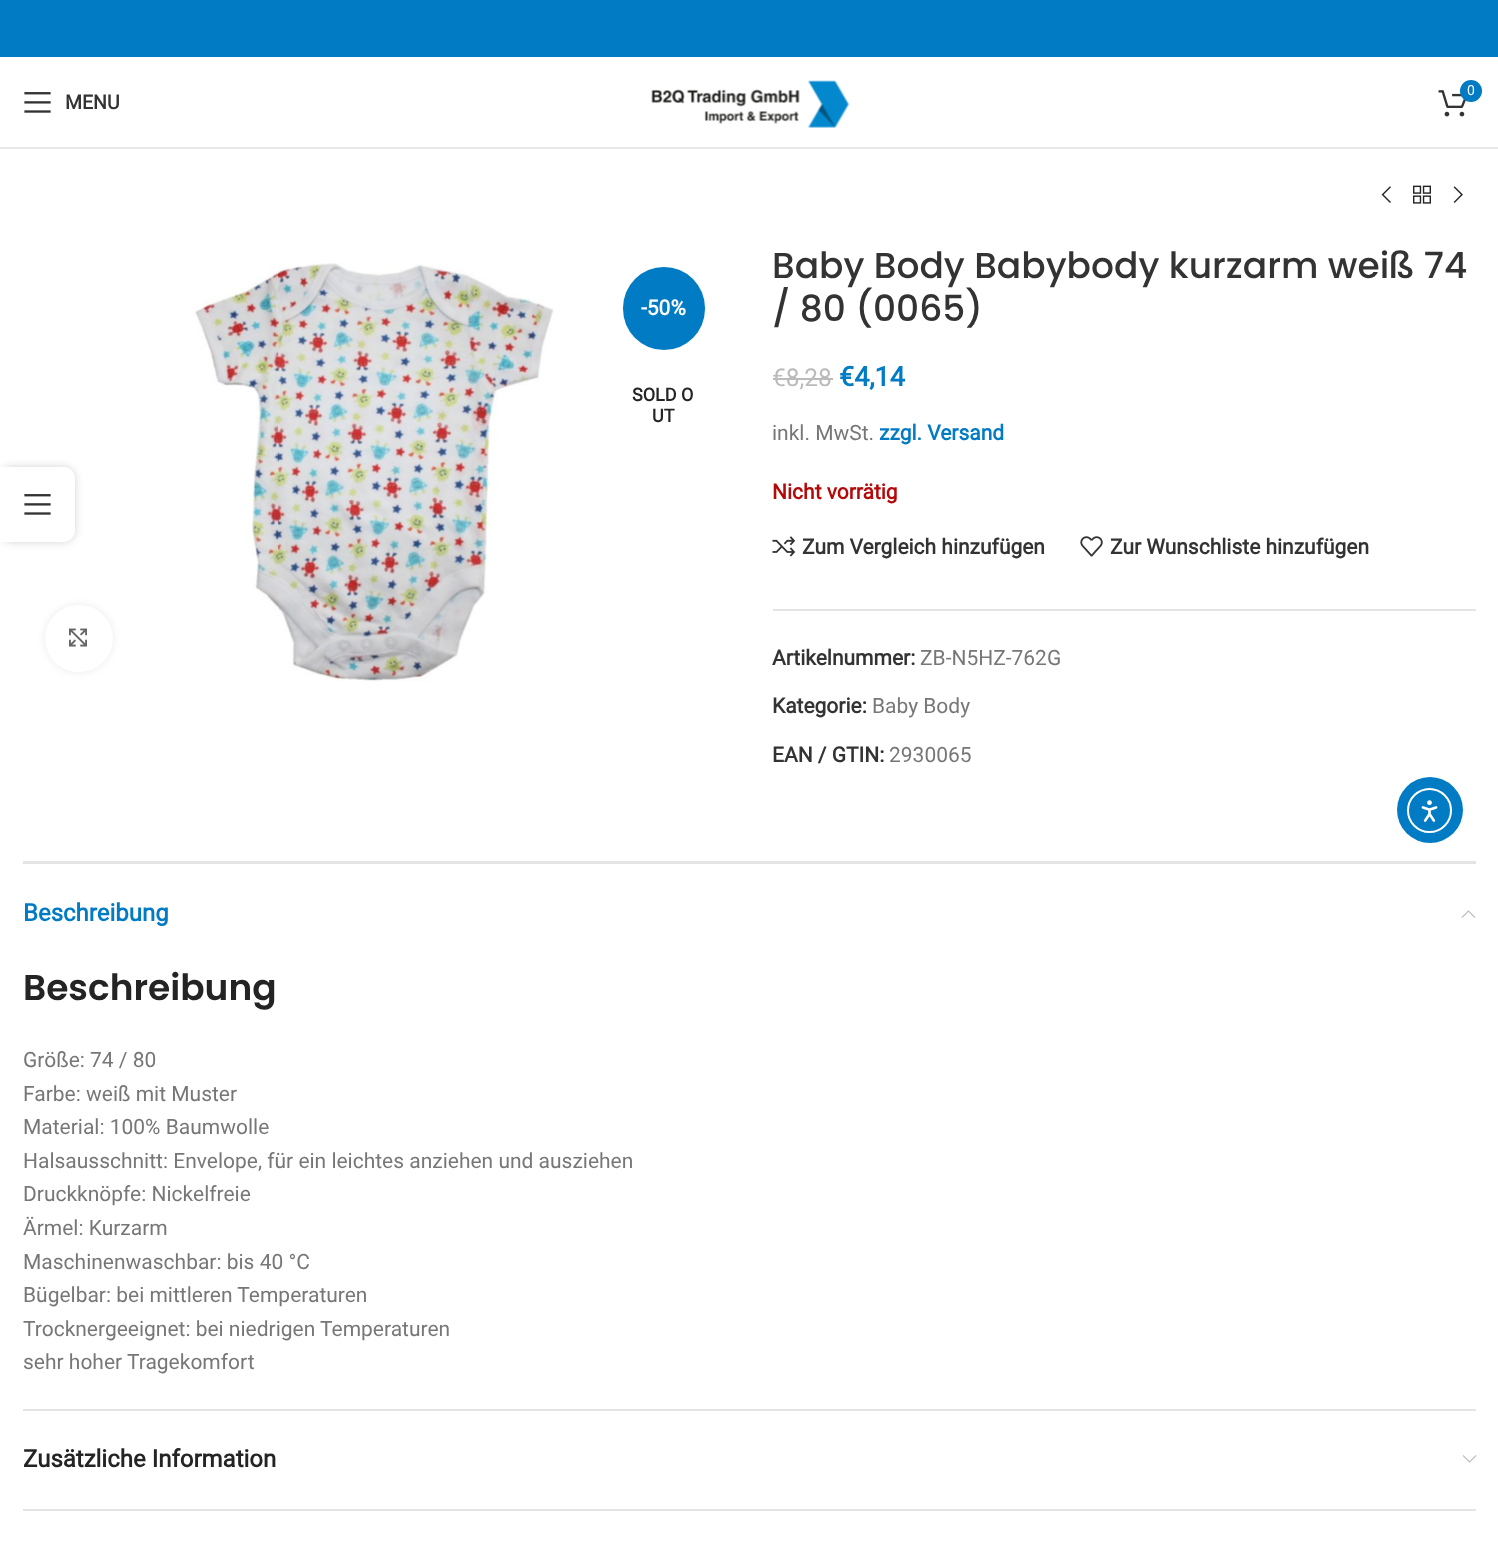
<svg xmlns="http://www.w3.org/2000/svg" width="1498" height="1554">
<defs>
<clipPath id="clip1"><path d="M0 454h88v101h-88zm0 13h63c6.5 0 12 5.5 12 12v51c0 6.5-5.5 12-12 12h-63z" clip-rule="evenodd"/></clipPath>
</defs>
<rect width="100%" height="100%" fill="#fff"/>
<rect width="1498" height="57" fill="#007bc4"/>
<rect y="147" width="1498" height="2" fill="#e8e8e8"/>
<image x="651" y="80" width="199" height="48" href="media/1.png"/>
<image x="1438" y="90" width="28" height="27" href="media/2.png"/>
<circle cx="1471" cy="91" r="11" fill="#007bc4"/>
<text x="1467" y="95" style="font-family:Roboto;font-size:14px;fill:#fff">0</text>
<image x="24" y="92" width="27" height="21" href="media/3.png"/>
<text x="65" y="109" style="font-family:Roboto;font-size:19.5px;font-weight:bold;fill:#333">MENU</text>
<image x="1381" y="186" width="10" height="17" href="media/4.png"/>
<image x="1413" y="185" width="18" height="19" href="media/5.png"/>
<image x="1453" y="186" width="10" height="17" href="media/6.png"/>
<image x="195" y="263" width="359" height="419" href="media/7.png"/>
<rect x="623" y="267" width="82" height="83" rx="41" fill="#007bc4"/>
<text x="641" y="315" style="font-family:Roboto;font-size:21px;font-weight:bold;fill:#fff">-50%</text>
<text x="632" y="401" style="font-family:Roboto;font-size:18px;font-weight:bold;fill:#242424">SOLD O</text>
<text x="652" y="422" style="font-family:Roboto;font-size:18px;font-weight:bold;fill:#242424">UT</text>
<rect x="45" y="605" width="68" height="67" rx="33.5" fill="#00000014" filter="blur(4px)"/>
<rect x="45" y="605" width="68" height="67" rx="33.5" fill="#fff"/>
<image x="69" y="628" width="18" height="19" href="media/8.png"/>
<text x="772" y="278" style="font-family:Poppins;font-size:36px;font-weight:500;fill:#333">Baby Body Babybody kurzarm weiß 74</text>
<text x="772" y="321" style="font-family:Poppins;font-size:36px;font-weight:500;fill:#333">/ 80 (0065)</text>
<text x="772" y="386" style="font-family:Roboto;font-size:24.5px;fill:#bbb">€8,28</text>
<rect x="773" y="378" width="60" height="2" fill="#bbb"/>
<text x="839" y="386" style="font-family:Roboto;font-size:27px;font-weight:bold;fill:#007bc4">€4,14</text>
<text x="772" y="440" style="font-family:Roboto;font-size:21px;fill:#777">inkl. MwSt.</text>
<text x="879" y="440" style="font-family:Roboto;font-size:21px;font-weight:bold;fill:#007bc4">zzgl. Versand</text>
<text x="772" y="499" style="font-family:Roboto;font-size:21px;font-weight:bold;fill:#b50808">Nicht vorrätig</text>
<image x="772" y="536" width="24" height="21" href="media/9.png"/>
<text x="802" y="554" style="font-family:Roboto;font-size:21px;font-weight:bold;fill:#333">Zum Vergleich hinzufügen</text>
<image x="1080" y="536" width="23" height="21" href="media/10.png"/>
<text x="1110" y="554" style="font-family:Roboto;font-size:21px;font-weight:bold;fill:#333">Zur Wunschliste hinzufügen</text>
<rect x="773" y="609" width="703" height="2" fill="#e4e4e4"/>
<text x="772" y="665" style="font-family:Roboto;font-size:21px;font-weight:bold;fill:#333">Artikelnummer:</text>
<text x="920" y="665" style="font-family:Roboto;font-size:21px;fill:#777">ZB-N5HZ-762G</text>
<text x="772" y="713" style="font-family:Roboto;font-size:21px;font-weight:bold;fill:#333">Kategorie:</text>
<text x="872" y="713" style="font-family:Roboto;font-size:21px;fill:#777">Baby Body</text>
<text x="772" y="762" style="font-family:Roboto;font-size:21px;font-weight:bold;fill:#333">EAN / GTIN:</text>
<text x="889" y="762" style="font-family:Roboto;font-size:21px;fill:#777">2930065</text>
<rect x="23" y="861" width="1453" height="3" fill="#e4e4e4"/>
<rect x="23" y="1409" width="1453" height="2" fill="#e4e4e4"/>
<text x="23" y="921" style="font-family:Roboto;font-size:24px;font-weight:bold;fill:#007bc4">Beschreibung</text>
<image x="1461" y="910" width="15" height="8" href="media/11.png"/>
<text x="23" y="1000" style="font-family:Poppins;font-size:36px;font-weight:600;fill:#242424">Beschreibung</text>
<text x="23" y="1067" style="font-family:Roboto;font-size:21px;fill:#777">Größe: 74 / 80</text>
<text x="23" y="1101" style="font-family:Roboto;font-size:21px;fill:#777">Farbe: weiß mit Muster</text>
<text x="23" y="1134" style="font-family:Roboto;font-size:21px;fill:#777">Material: 100% Baumwolle</text>
<text x="23" y="1168" style="font-family:Roboto;font-size:21px;fill:#777">Halsausschnitt: Envelope, für ein leichtes anziehen und ausziehen</text>
<text x="23" y="1201" style="font-family:Roboto;font-size:21px;fill:#777">Druckknöpfe: Nickelfreie</text>
<text x="23" y="1235" style="font-family:Roboto;font-size:21px;fill:#777">Ärmel: Kurzarm</text>
<text x="23" y="1269" style="font-family:Roboto;font-size:21px;fill:#777">Maschinenwaschbar: bis 40 °C</text>
<text x="23" y="1302" style="font-family:Roboto;font-size:21px;fill:#777">Bügelbar: bei mittleren Temperaturen</text>
<text x="23" y="1336" style="font-family:Roboto;font-size:21px;fill:#777">Trocknergeeignet: bei niedrigen Temperaturen</text>
<text x="23" y="1369" style="font-family:Roboto;font-size:21px;fill:#777">sehr hoher Tragekomfort</text>
<rect x="23" y="1509" width="1453" height="2" fill="#e4e4e4"/>
<text x="23" y="1467" style="font-family:Roboto;font-size:24px;font-weight:bold;fill:#242424">Zusätzliche Information</text>
<image x="1462" y="1455" width="15" height="8" href="media/12.png"/>
<g clip-path="url(#clip1)">
<rect y="467" width="75" height="75" rx="12" fill="#0000002b" filter="blur(4px)"/>
</g>
<path d="M0 467h63c6.5 0 12 5.5 12 12v51c0 6.5-5.5 12-12 12h-63z" fill="#ffffffe6"/>
<image x="24" y="494" width="27" height="21" href="media/3.png"/>
<circle cx="1430" cy="810" r="33" fill="#007bc4"/>
<circle cx="1429.5" cy="810.5" r="21.5" fill="none" stroke="#fff" stroke-width="2"/>
<image x="1421" y="800" width="17" height="22" href="media/13.png"/>
</svg>
